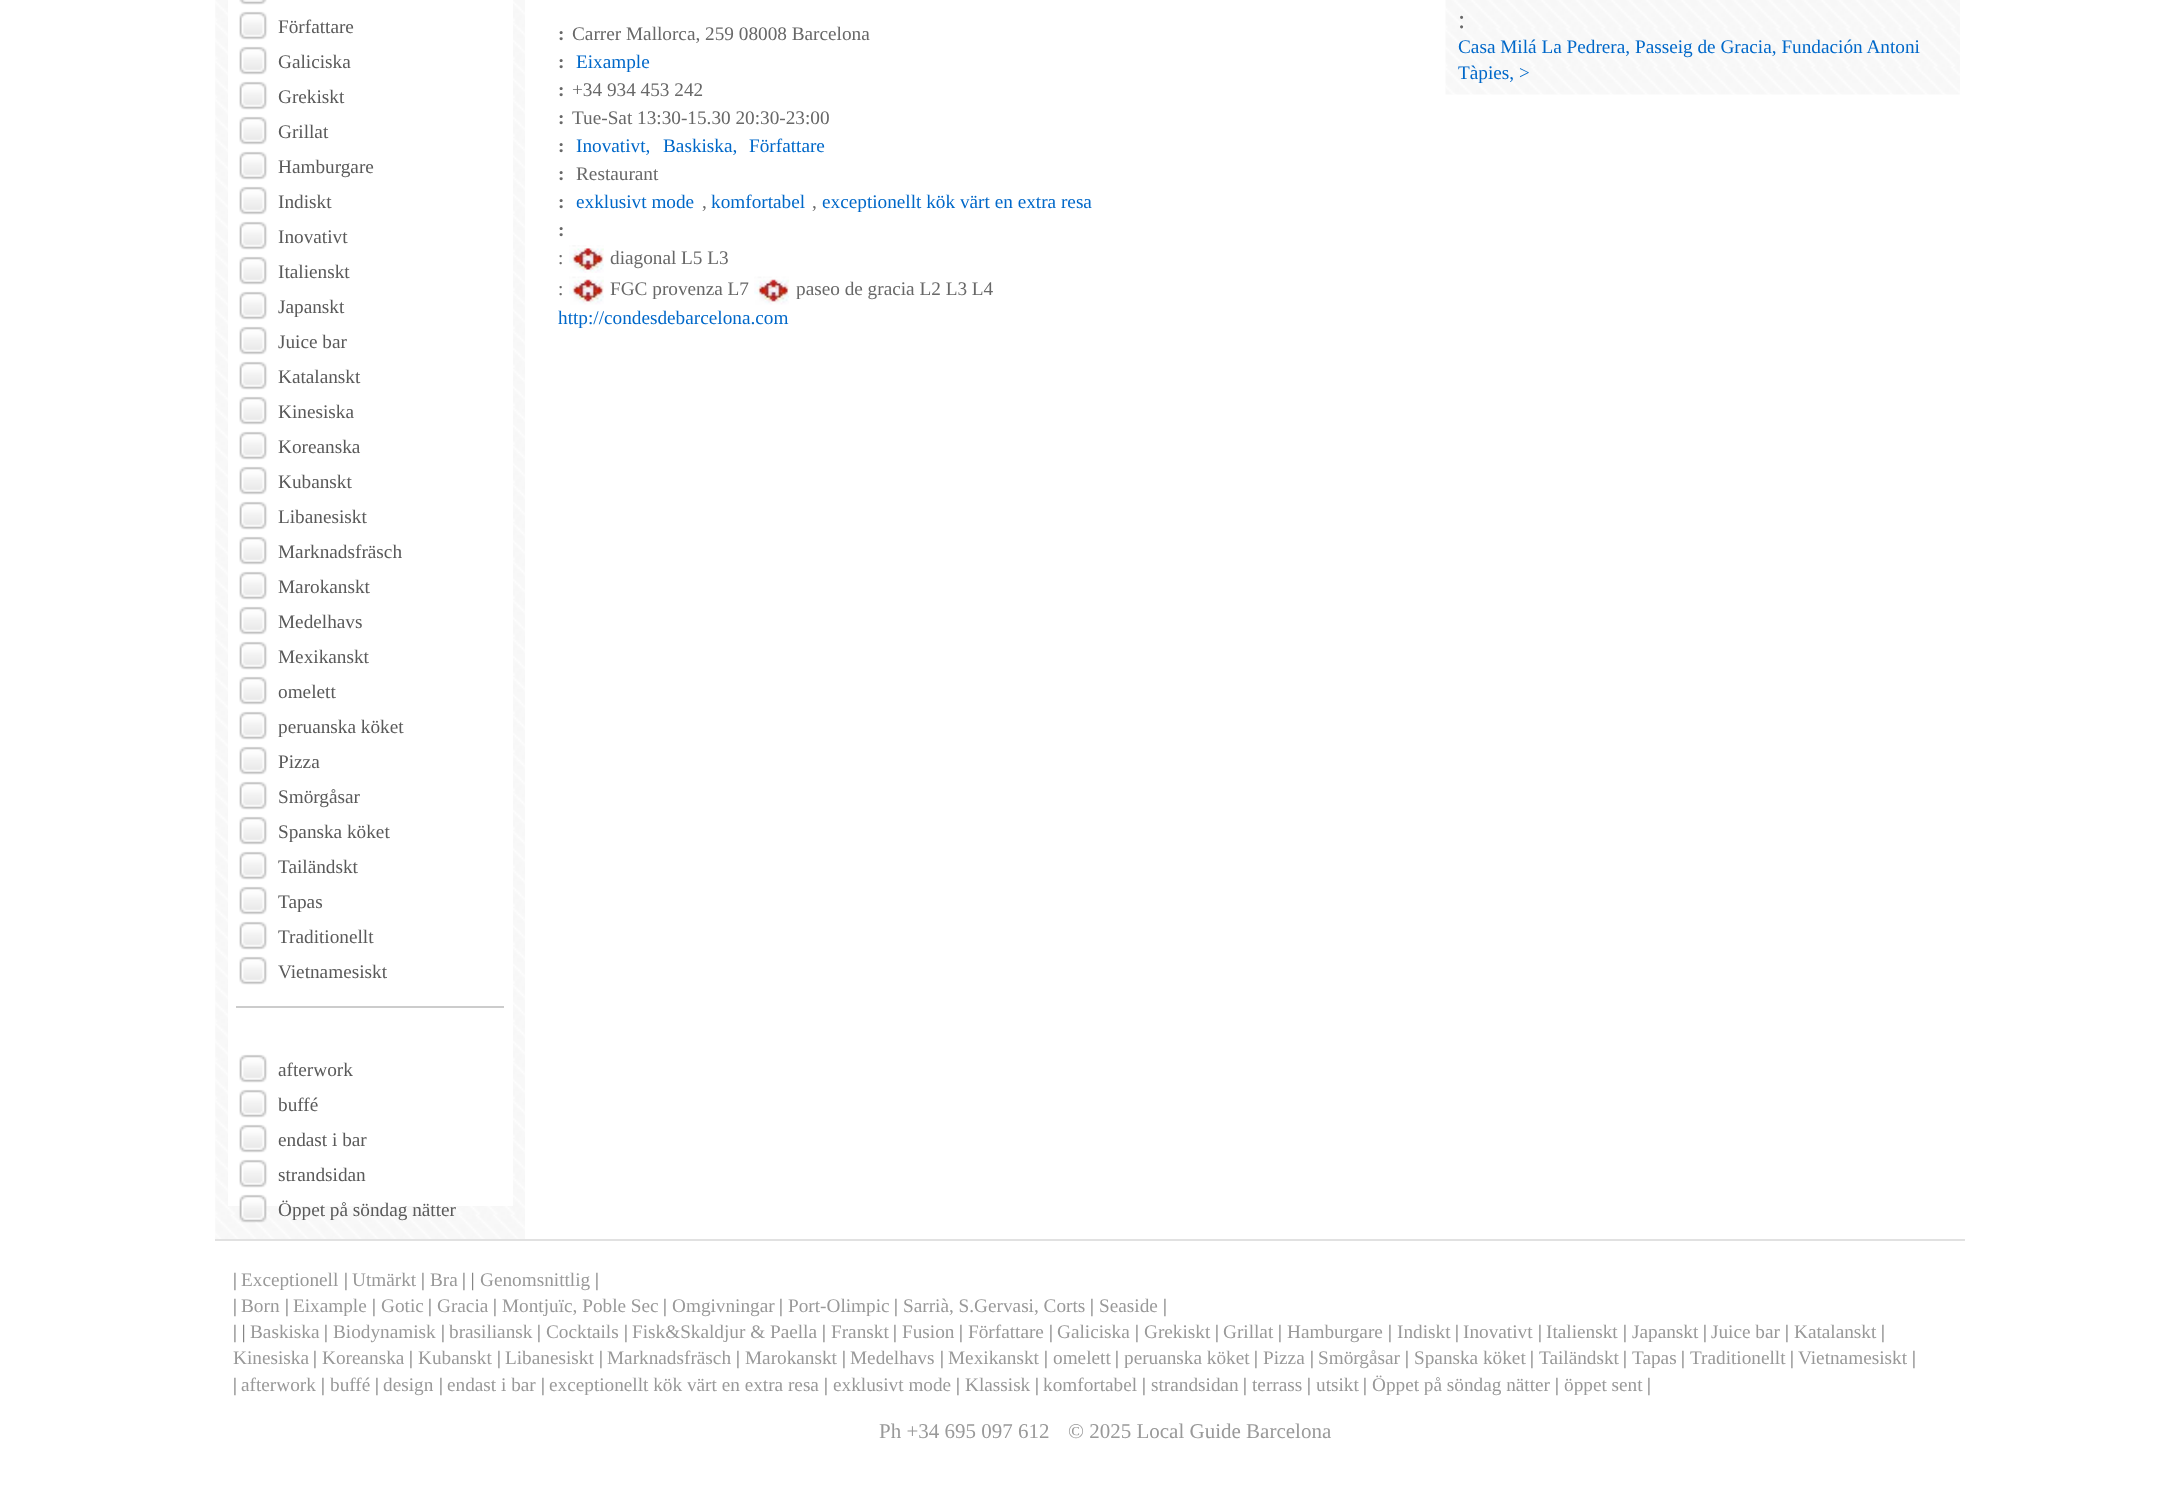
<svg xmlns="http://www.w3.org/2000/svg" width="2180" height="1499">
<rect width="100%" height="100%" fill="#fff"/>
<image x="215" y="0" width="310" height="1239" href="media/1.png"/>
<rect x="228" width="285" height="1206" fill="#fff"/>
<image x="239" y="0" width="28" height="5" href="media/2.png"/>
<image x="239" y="11" width="29" height="29" href="media/3.png"/>
<text x="278" y="33" style="font-family:Liberation Serif;font-size:19.25px;fill:#5a5a5a">Författare</text>
<image x="239" y="46" width="29" height="29" href="media/3.png"/>
<text x="278" y="68" style="font-family:Liberation Serif;font-size:19.25px;fill:#5a5a5a">Galiciska</text>
<image x="239" y="81" width="29" height="29" href="media/3.png"/>
<text x="278" y="103" style="font-family:Liberation Serif;font-size:19.25px;fill:#5a5a5a">Grekiskt</text>
<image x="239" y="116" width="29" height="29" href="media/3.png"/>
<text x="278" y="138" style="font-family:Liberation Serif;font-size:19.25px;fill:#5a5a5a">Grillat</text>
<image x="239" y="151" width="29" height="29" href="media/3.png"/>
<text x="278" y="173" style="font-family:Liberation Serif;font-size:19.25px;fill:#5a5a5a">Hamburgare</text>
<image x="239" y="186" width="29" height="29" href="media/3.png"/>
<text x="278" y="208" style="font-family:Liberation Serif;font-size:19.25px;fill:#5a5a5a">Indiskt</text>
<image x="239" y="221" width="29" height="29" href="media/3.png"/>
<text x="278" y="243" style="font-family:Liberation Serif;font-size:19.25px;fill:#5a5a5a">Inovativt</text>
<image x="239" y="256" width="29" height="29" href="media/3.png"/>
<text x="278" y="278" style="font-family:Liberation Serif;font-size:19.25px;fill:#5a5a5a">Italienskt</text>
<image x="239" y="291" width="29" height="29" href="media/3.png"/>
<text x="278" y="313" style="font-family:Liberation Serif;font-size:19.25px;fill:#5a5a5a">Japanskt</text>
<image x="239" y="326" width="29" height="29" href="media/3.png"/>
<text x="278" y="348" style="font-family:Liberation Serif;font-size:19.25px;fill:#5a5a5a">Juice bar</text>
<image x="239" y="361" width="29" height="29" href="media/3.png"/>
<text x="278" y="383" style="font-family:Liberation Serif;font-size:19.25px;fill:#5a5a5a">Katalanskt</text>
<image x="239" y="396" width="29" height="29" href="media/3.png"/>
<text x="278" y="418" style="font-family:Liberation Serif;font-size:19.25px;fill:#5a5a5a">Kinesiska</text>
<image x="239" y="431" width="29" height="29" href="media/3.png"/>
<text x="278" y="453" style="font-family:Liberation Serif;font-size:19.25px;fill:#5a5a5a">Koreanska</text>
<image x="239" y="466" width="29" height="29" href="media/3.png"/>
<text x="278" y="488" style="font-family:Liberation Serif;font-size:19.25px;fill:#5a5a5a">Kubanskt</text>
<image x="239" y="501" width="29" height="29" href="media/3.png"/>
<text x="278" y="523" style="font-family:Liberation Serif;font-size:19.25px;fill:#5a5a5a">Libanesiskt</text>
<image x="239" y="536" width="29" height="29" href="media/3.png"/>
<text x="278" y="558" style="font-family:Liberation Serif;font-size:19.25px;fill:#5a5a5a">Marknadsfräsch</text>
<image x="239" y="571" width="29" height="29" href="media/3.png"/>
<text x="278" y="593" style="font-family:Liberation Serif;font-size:19.25px;fill:#5a5a5a">Marokanskt</text>
<image x="239" y="606" width="29" height="29" href="media/3.png"/>
<text x="278" y="628" style="font-family:Liberation Serif;font-size:19.25px;fill:#5a5a5a">Medelhavs</text>
<image x="239" y="641" width="29" height="29" href="media/3.png"/>
<text x="278" y="663" style="font-family:Liberation Serif;font-size:19.25px;fill:#5a5a5a">Mexikanskt</text>
<image x="239" y="676" width="29" height="29" href="media/3.png"/>
<text x="278" y="698" style="font-family:Liberation Serif;font-size:19.25px;fill:#5a5a5a">omelett</text>
<image x="239" y="711" width="29" height="29" href="media/3.png"/>
<text x="278" y="733" style="font-family:Liberation Serif;font-size:19.25px;fill:#5a5a5a">peruanska köket</text>
<image x="239" y="746" width="29" height="29" href="media/3.png"/>
<text x="278" y="768" style="font-family:Liberation Serif;font-size:19.25px;fill:#5a5a5a">Pizza</text>
<image x="239" y="781" width="29" height="29" href="media/3.png"/>
<text x="278" y="803" style="font-family:Liberation Serif;font-size:19.25px;fill:#5a5a5a">Smörgåsar</text>
<image x="239" y="816" width="29" height="29" href="media/4.png"/>
<text x="278" y="838" style="font-family:Liberation Serif;font-size:19.25px;fill:#5a5a5a">Spanska köket</text>
<image x="239" y="851" width="29" height="29" href="media/3.png"/>
<text x="278" y="873" style="font-family:Liberation Serif;font-size:19.25px;fill:#5a5a5a">Tailändskt</text>
<image x="239" y="886" width="29" height="29" href="media/3.png"/>
<text x="278" y="908" style="font-family:Liberation Serif;font-size:19.25px;fill:#5a5a5a">Tapas</text>
<image x="239" y="921" width="29" height="29" href="media/5.png"/>
<text x="278" y="943" style="font-family:Liberation Serif;font-size:19.25px;fill:#5a5a5a">Traditionellt</text>
<image x="239" y="956" width="29" height="29" href="media/3.png"/>
<text x="278" y="978" style="font-family:Liberation Serif;font-size:19.25px;fill:#5a5a5a">Vietnamesiskt</text>
<rect x="236" y="1006" width="268" height="2" fill="#ccc"/>
<image x="239" y="1054" width="29" height="29" href="media/3.png"/>
<text x="278" y="1076" style="font-family:Liberation Serif;font-size:19.25px;fill:#5a5a5a">afterwork</text>
<image x="239" y="1089" width="29" height="29" href="media/3.png"/>
<text x="278" y="1111" style="font-family:Liberation Serif;font-size:19.25px;fill:#5a5a5a">buffé</text>
<image x="239" y="1124" width="29" height="29" href="media/3.png"/>
<text x="278" y="1146" style="font-family:Liberation Serif;font-size:19.25px;fill:#5a5a5a">endast i bar</text>
<image x="239" y="1159" width="29" height="29" href="media/3.png"/>
<text x="278" y="1181" style="font-family:Liberation Serif;font-size:19.25px;fill:#5a5a5a">strandsidan</text>
<image x="239" y="1194" width="28" height="29" href="media/6.png"/>
<text x="278" y="1216" style="font-family:Liberation Serif;font-size:19.25px;fill:#5a5a5a">Öppet på söndag nätter</text>
<text x="558" y="40" style="font-family:Liberation Serif;font-size:19.25px;font-weight:bold;fill:#686868">:</text>
<text x="572" y="40" style="font-family:Liberation Serif;font-size:19.25px;fill:#686868">Carrer Mallorca, 259 08008 Barcelona</text>
<text x="558" y="68" style="font-family:Liberation Serif;font-size:19.25px;font-weight:bold;fill:#686868">:</text>
<text x="576" y="68" style="font-family:Liberation Serif;font-size:19.25px;fill:#0068c9">Eixample</text>
<text x="558" y="96" style="font-family:Liberation Serif;font-size:19.25px;font-weight:bold;fill:#686868">:</text>
<text x="572" y="96" style="font-family:Liberation Serif;font-size:19.25px;fill:#686868">+34 934 453 242</text>
<text x="558" y="124" style="font-family:Liberation Serif;font-size:19.25px;font-weight:bold;fill:#686868">:</text>
<text x="572" y="124" style="font-family:Liberation Serif;font-size:19.25px;fill:#686868">Tue-Sat 13:30-15.30 20:30-23:00</text>
<text x="558" y="152" style="font-family:Liberation Serif;font-size:19.25px;font-weight:bold;fill:#686868">:</text>
<text x="576" y="152" style="font-family:Liberation Serif;font-size:19.25px;fill:#0068c9">Inovativt,</text>
<text x="663" y="152" style="font-family:Liberation Serif;font-size:19.25px;fill:#0068c9">Baskiska,</text>
<text x="749" y="152" style="font-family:Liberation Serif;font-size:19.25px;fill:#0068c9">Författare</text>
<text x="558" y="180" style="font-family:Liberation Serif;font-size:19.25px;font-weight:bold;fill:#686868">:</text>
<text x="576" y="180" style="font-family:Liberation Serif;font-size:19.25px;fill:#686868">Restaurant</text>
<text x="558" y="208" style="font-family:Liberation Serif;font-size:19.25px;font-weight:bold;fill:#686868">:</text>
<text x="576" y="208" style="font-family:Liberation Serif;font-size:19.25px;fill:#0068c9">exklusivt mode</text>
<text x="702" y="208" style="font-family:Liberation Serif;font-size:19.25px;fill:#686868">,</text>
<text x="711" y="208" style="font-family:Liberation Serif;font-size:19.25px;fill:#0068c9">komfortabel</text>
<text x="812" y="208" style="font-family:Liberation Serif;font-size:19.25px;fill:#686868">,</text>
<text x="822" y="208" style="font-family:Liberation Serif;font-size:19.25px;fill:#0068c9">exceptionellt kök värt en extra resa</text>
<text x="558" y="236" style="font-family:Liberation Serif;font-size:19.25px;font-weight:bold;fill:#686868">:</text>
<text x="558" y="264" style="font-family:Liberation Serif;font-size:19.25px;fill:#686868">:</text>
<image x="569" y="245" width="35" height="28" href="media/7.png"/>
<text x="610" y="264" style="font-family:Liberation Serif;font-size:19.25px;fill:#686868">diagonal L5 L3</text>
<text x="558" y="295" style="font-family:Liberation Serif;font-size:19.25px;fill:#686868">:</text>
<image x="569" y="276" width="35" height="29" href="media/8.png"/>
<text x="610" y="295" style="font-family:Liberation Serif;font-size:19.25px;fill:#686868">FGC provenza L7</text>
<image x="754" y="276" width="36" height="29" href="media/9.png"/>
<text x="796" y="295" style="font-family:Liberation Serif;font-size:19.25px;fill:#686868">paseo de gracia L2 L3 L4</text>
<text x="558" y="324" style="font-family:Liberation Serif;font-size:19.25px;fill:#0068c9">http://condesdebarcelona.com</text>
<image x="1445" y="0" width="515" height="95" href="media/10.png"/>
<text x="1458" y="28" style="font-family:Liberation Serif;font-size:26px;letter-spacing:1px;fill:#686868">:</text>
<text x="1458" y="53" style="font-family:Liberation Serif;font-size:19.25px;fill:#0068c9">Casa Milá La Pedrera, Passeig de Gracia, Fundación Antoni</text>
<text x="1458" y="79" style="font-family:Liberation Serif;font-size:19.25px;fill:#0068c9">Tàpies, &gt;</text>
<rect x="215" y="1239" width="1750" height="2" fill="#e1e1e1"/>
<text x="233" y="1286" style="font-family:Liberation Serif;font-size:19.25px;fill:#686868">|</text>
<text x="241" y="1286" style="font-family:Liberation Serif;font-size:19.25px;fill:#999">Exceptionell</text>
<text x="344" y="1286" style="font-family:Liberation Serif;font-size:19.25px;fill:#686868">|</text>
<text x="352" y="1286" style="font-family:Liberation Serif;font-size:19.25px;fill:#999">Utmärkt</text>
<text x="421" y="1286" style="font-family:Liberation Serif;font-size:19.25px;fill:#686868">|</text>
<text x="430" y="1286" style="font-family:Liberation Serif;font-size:19.25px;fill:#999">Bra</text>
<text x="462" y="1286" style="font-family:Liberation Serif;font-size:19.25px;fill:#686868">| |</text>
<text x="480" y="1286" style="font-family:Liberation Serif;font-size:19.25px;fill:#999">Genomsnittlig</text>
<text x="595" y="1286" style="font-family:Liberation Serif;font-size:19.25px;fill:#686868">|</text>
<text x="233" y="1312" style="font-family:Liberation Serif;font-size:19.25px;fill:#686868">|</text>
<text x="241" y="1312" style="font-family:Liberation Serif;font-size:19.25px;fill:#999">Born</text>
<text x="285" y="1312" style="font-family:Liberation Serif;font-size:19.25px;fill:#686868">|</text>
<text x="293" y="1312" style="font-family:Liberation Serif;font-size:19.25px;fill:#999">Eixample</text>
<text x="372" y="1312" style="font-family:Liberation Serif;font-size:19.25px;fill:#686868">|</text>
<text x="381" y="1312" style="font-family:Liberation Serif;font-size:19.25px;fill:#999">Gotic</text>
<text x="428" y="1312" style="font-family:Liberation Serif;font-size:19.25px;fill:#686868">|</text>
<text x="437" y="1312" style="font-family:Liberation Serif;font-size:19.25px;fill:#999">Gracia</text>
<text x="493" y="1312" style="font-family:Liberation Serif;font-size:19.25px;fill:#686868">|</text>
<text x="502" y="1312" style="font-family:Liberation Serif;font-size:19.25px;fill:#999">Montjuïc, Poble Sec</text>
<text x="663" y="1312" style="font-family:Liberation Serif;font-size:19.25px;fill:#686868">|</text>
<text x="672" y="1312" style="font-family:Liberation Serif;font-size:19.25px;fill:#999">Omgivningar</text>
<text x="779" y="1312" style="font-family:Liberation Serif;font-size:19.25px;fill:#686868">|</text>
<text x="788" y="1312" style="font-family:Liberation Serif;font-size:19.25px;fill:#999">Port-Olimpic</text>
<text x="894" y="1312" style="font-family:Liberation Serif;font-size:19.25px;fill:#686868">|</text>
<text x="903" y="1312" style="font-family:Liberation Serif;font-size:19.25px;fill:#999">Sarrià, S.Gervasi, Corts</text>
<text x="1090" y="1312" style="font-family:Liberation Serif;font-size:19.25px;fill:#686868">|</text>
<text x="1099" y="1312" style="font-family:Liberation Serif;font-size:19.25px;fill:#999">Seaside</text>
<text x="1163" y="1312" style="font-family:Liberation Serif;font-size:19.25px;fill:#686868">|</text>
<text x="233" y="1338" style="font-family:Liberation Serif;font-size:19.25px;fill:#686868">| |</text>
<text x="250" y="1338" style="font-family:Liberation Serif;font-size:19.25px;fill:#999">Baskiska</text>
<text x="324" y="1338" style="font-family:Liberation Serif;font-size:19.25px;fill:#686868">|</text>
<text x="333" y="1338" style="font-family:Liberation Serif;font-size:19.25px;fill:#999">Biodynamisk</text>
<text x="441" y="1338" style="font-family:Liberation Serif;font-size:19.25px;fill:#686868">|</text>
<text x="449" y="1338" style="font-family:Liberation Serif;font-size:19.25px;fill:#999">brasiliansk</text>
<text x="537" y="1338" style="font-family:Liberation Serif;font-size:19.25px;fill:#686868">|</text>
<text x="546" y="1338" style="font-family:Liberation Serif;font-size:19.25px;fill:#999">Cocktails</text>
<text x="624" y="1338" style="font-family:Liberation Serif;font-size:19.25px;fill:#686868">|</text>
<text x="632" y="1338" style="font-family:Liberation Serif;font-size:19.25px;fill:#999">Fisk&amp;Skaldjur &amp; Paella</text>
<text x="822" y="1338" style="font-family:Liberation Serif;font-size:19.25px;fill:#686868">|</text>
<text x="831" y="1338" style="font-family:Liberation Serif;font-size:19.25px;fill:#999">Franskt</text>
<text x="893" y="1338" style="font-family:Liberation Serif;font-size:19.25px;fill:#686868">|</text>
<text x="902" y="1338" style="font-family:Liberation Serif;font-size:19.25px;fill:#999">Fusion</text>
<text x="959" y="1338" style="font-family:Liberation Serif;font-size:19.25px;fill:#686868">|</text>
<text x="968" y="1338" style="font-family:Liberation Serif;font-size:19.25px;fill:#999">Författare</text>
<text x="1049" y="1338" style="font-family:Liberation Serif;font-size:19.25px;fill:#686868">|</text>
<text x="1057" y="1338" style="font-family:Liberation Serif;font-size:19.25px;fill:#999">Galiciska</text>
<text x="1135" y="1338" style="font-family:Liberation Serif;font-size:19.25px;fill:#686868">|</text>
<text x="1144" y="1338" style="font-family:Liberation Serif;font-size:19.25px;fill:#999">Grekiskt</text>
<text x="1215" y="1338" style="font-family:Liberation Serif;font-size:19.25px;fill:#686868">|</text>
<text x="1223" y="1338" style="font-family:Liberation Serif;font-size:19.25px;fill:#999">Grillat</text>
<text x="1278" y="1338" style="font-family:Liberation Serif;font-size:19.25px;fill:#686868">|</text>
<text x="1287" y="1338" style="font-family:Liberation Serif;font-size:19.25px;fill:#999">Hamburgare</text>
<text x="1388" y="1338" style="font-family:Liberation Serif;font-size:19.25px;fill:#686868">|</text>
<text x="1397" y="1338" style="font-family:Liberation Serif;font-size:19.25px;fill:#999">Indiskt</text>
<text x="1455" y="1338" style="font-family:Liberation Serif;font-size:19.25px;fill:#686868">|</text>
<text x="1463" y="1338" style="font-family:Liberation Serif;font-size:19.25px;fill:#999">Inovativt</text>
<text x="1538" y="1338" style="font-family:Liberation Serif;font-size:19.25px;fill:#686868">|</text>
<text x="1546" y="1338" style="font-family:Liberation Serif;font-size:19.25px;fill:#999">Italienskt</text>
<text x="1623" y="1338" style="font-family:Liberation Serif;font-size:19.25px;fill:#686868">|</text>
<text x="1632" y="1338" style="font-family:Liberation Serif;font-size:19.25px;fill:#999">Japanskt</text>
<text x="1703" y="1338" style="font-family:Liberation Serif;font-size:19.25px;fill:#686868">|</text>
<text x="1711" y="1338" style="font-family:Liberation Serif;font-size:19.25px;fill:#999">Juice bar</text>
<text x="1785" y="1338" style="font-family:Liberation Serif;font-size:19.25px;fill:#686868">|</text>
<text x="1794" y="1338" style="font-family:Liberation Serif;font-size:19.25px;fill:#999">Katalanskt</text>
<text x="1881" y="1338" style="font-family:Liberation Serif;font-size:19.25px;fill:#686868">|</text>
<text x="233" y="1364" style="font-family:Liberation Serif;font-size:19.25px;fill:#999">Kinesiska</text>
<text x="313" y="1364" style="font-family:Liberation Serif;font-size:19.25px;fill:#686868">|</text>
<text x="322" y="1364" style="font-family:Liberation Serif;font-size:19.25px;fill:#999">Koreanska</text>
<text x="409" y="1364" style="font-family:Liberation Serif;font-size:19.25px;fill:#686868">|</text>
<text x="418" y="1364" style="font-family:Liberation Serif;font-size:19.25px;fill:#999">Kubanskt</text>
<text x="497" y="1364" style="font-family:Liberation Serif;font-size:19.25px;fill:#686868">|</text>
<text x="505" y="1364" style="font-family:Liberation Serif;font-size:19.25px;fill:#999">Libanesiskt</text>
<text x="599" y="1364" style="font-family:Liberation Serif;font-size:19.25px;fill:#686868">|</text>
<text x="607" y="1364" style="font-family:Liberation Serif;font-size:19.25px;fill:#999">Marknadsfräsch</text>
<text x="736" y="1364" style="font-family:Liberation Serif;font-size:19.25px;fill:#686868">|</text>
<text x="745" y="1364" style="font-family:Liberation Serif;font-size:19.25px;fill:#999">Marokanskt</text>
<text x="842" y="1364" style="font-family:Liberation Serif;font-size:19.25px;fill:#686868">|</text>
<text x="850" y="1364" style="font-family:Liberation Serif;font-size:19.25px;fill:#999">Medelhavs</text>
<text x="940" y="1364" style="font-family:Liberation Serif;font-size:19.25px;fill:#686868">|</text>
<text x="948" y="1364" style="font-family:Liberation Serif;font-size:19.25px;fill:#999">Mexikanskt</text>
<text x="1044" y="1364" style="font-family:Liberation Serif;font-size:19.25px;fill:#686868">|</text>
<text x="1053" y="1364" style="font-family:Liberation Serif;font-size:19.25px;fill:#999">omelett</text>
<text x="1115" y="1364" style="font-family:Liberation Serif;font-size:19.25px;fill:#686868">|</text>
<text x="1124" y="1364" style="font-family:Liberation Serif;font-size:19.25px;fill:#999">peruanska köket</text>
<text x="1254" y="1364" style="font-family:Liberation Serif;font-size:19.25px;fill:#686868">|</text>
<text x="1263" y="1364" style="font-family:Liberation Serif;font-size:19.25px;fill:#999">Pizza</text>
<text x="1310" y="1364" style="font-family:Liberation Serif;font-size:19.25px;fill:#686868">|</text>
<text x="1318" y="1364" style="font-family:Liberation Serif;font-size:19.25px;fill:#999">Smörgåsar</text>
<text x="1405" y="1364" style="font-family:Liberation Serif;font-size:19.25px;fill:#686868">|</text>
<text x="1414" y="1364" style="font-family:Liberation Serif;font-size:19.25px;fill:#999">Spanska köket</text>
<text x="1530" y="1364" style="font-family:Liberation Serif;font-size:19.25px;fill:#686868">|</text>
<text x="1539" y="1364" style="font-family:Liberation Serif;font-size:19.25px;fill:#999">Tailändskt</text>
<text x="1623" y="1364" style="font-family:Liberation Serif;font-size:19.25px;fill:#686868">|</text>
<text x="1632" y="1364" style="font-family:Liberation Serif;font-size:19.25px;fill:#999">Tapas</text>
<text x="1681" y="1364" style="font-family:Liberation Serif;font-size:19.25px;fill:#686868">|</text>
<text x="1690" y="1364" style="font-family:Liberation Serif;font-size:19.25px;fill:#999">Traditionellt</text>
<text x="1790" y="1364" style="font-family:Liberation Serif;font-size:19.25px;fill:#686868">|</text>
<text x="1798" y="1364" style="font-family:Liberation Serif;font-size:19.25px;fill:#999">Vietnamesiskt</text>
<text x="1912" y="1364" style="font-family:Liberation Serif;font-size:19.25px;fill:#686868">|</text>
<text x="233" y="1391" style="font-family:Liberation Serif;font-size:19.25px;fill:#686868">|</text>
<text x="241" y="1391" style="font-family:Liberation Serif;font-size:19.25px;fill:#999">afterwork</text>
<text x="321" y="1391" style="font-family:Liberation Serif;font-size:19.25px;fill:#686868">|</text>
<text x="330" y="1391" style="font-family:Liberation Serif;font-size:19.25px;fill:#999">buffé</text>
<text x="375" y="1391" style="font-family:Liberation Serif;font-size:19.25px;fill:#686868">|</text>
<text x="383" y="1391" style="font-family:Liberation Serif;font-size:19.25px;fill:#999">design</text>
<text x="439" y="1391" style="font-family:Liberation Serif;font-size:19.25px;fill:#686868">|</text>
<text x="447" y="1391" style="font-family:Liberation Serif;font-size:19.25px;fill:#999">endast i bar</text>
<text x="541" y="1391" style="font-family:Liberation Serif;font-size:19.25px;fill:#686868">|</text>
<text x="549" y="1391" style="font-family:Liberation Serif;font-size:19.25px;fill:#999">exceptionellt kök värt en extra resa</text>
<text x="824" y="1391" style="font-family:Liberation Serif;font-size:19.25px;fill:#686868">|</text>
<text x="833" y="1391" style="font-family:Liberation Serif;font-size:19.25px;fill:#999">exklusivt mode</text>
<text x="956" y="1391" style="font-family:Liberation Serif;font-size:19.25px;fill:#686868">|</text>
<text x="965" y="1391" style="font-family:Liberation Serif;font-size:19.25px;fill:#999">Klassisk</text>
<text x="1035" y="1391" style="font-family:Liberation Serif;font-size:19.25px;fill:#686868">|</text>
<text x="1043" y="1391" style="font-family:Liberation Serif;font-size:19.25px;fill:#999">komfortabel</text>
<text x="1142" y="1391" style="font-family:Liberation Serif;font-size:19.25px;fill:#686868">|</text>
<text x="1151" y="1391" style="font-family:Liberation Serif;font-size:19.25px;fill:#999">strandsidan</text>
<text x="1243" y="1391" style="font-family:Liberation Serif;font-size:19.25px;fill:#686868">|</text>
<text x="1252" y="1391" style="font-family:Liberation Serif;font-size:19.25px;fill:#999">terrass</text>
<text x="1307" y="1391" style="font-family:Liberation Serif;font-size:19.25px;fill:#686868">|</text>
<text x="1316" y="1391" style="font-family:Liberation Serif;font-size:19.25px;fill:#999">utsikt</text>
<text x="1363" y="1391" style="font-family:Liberation Serif;font-size:19.25px;fill:#686868">|</text>
<text x="1372" y="1391" style="font-family:Liberation Serif;font-size:19.25px;fill:#999">Öppet på söndag nätter</text>
<text x="1555" y="1391" style="font-family:Liberation Serif;font-size:19.25px;fill:#686868">|</text>
<text x="1564" y="1391" style="font-family:Liberation Serif;font-size:19.25px;fill:#999">öppet sent</text>
<text x="1647" y="1391" style="font-family:Liberation Serif;font-size:19.25px;fill:#686868">|</text>
<text x="879" y="1438" style="font-family:Liberation Serif;font-size:21px;fill:#999">Ph +34 695 097 612</text>
<text x="1068" y="1438" style="font-family:Liberation Serif;font-size:21px;fill:#999">© 2025 Local Guide Barcelona</text>
</svg>
